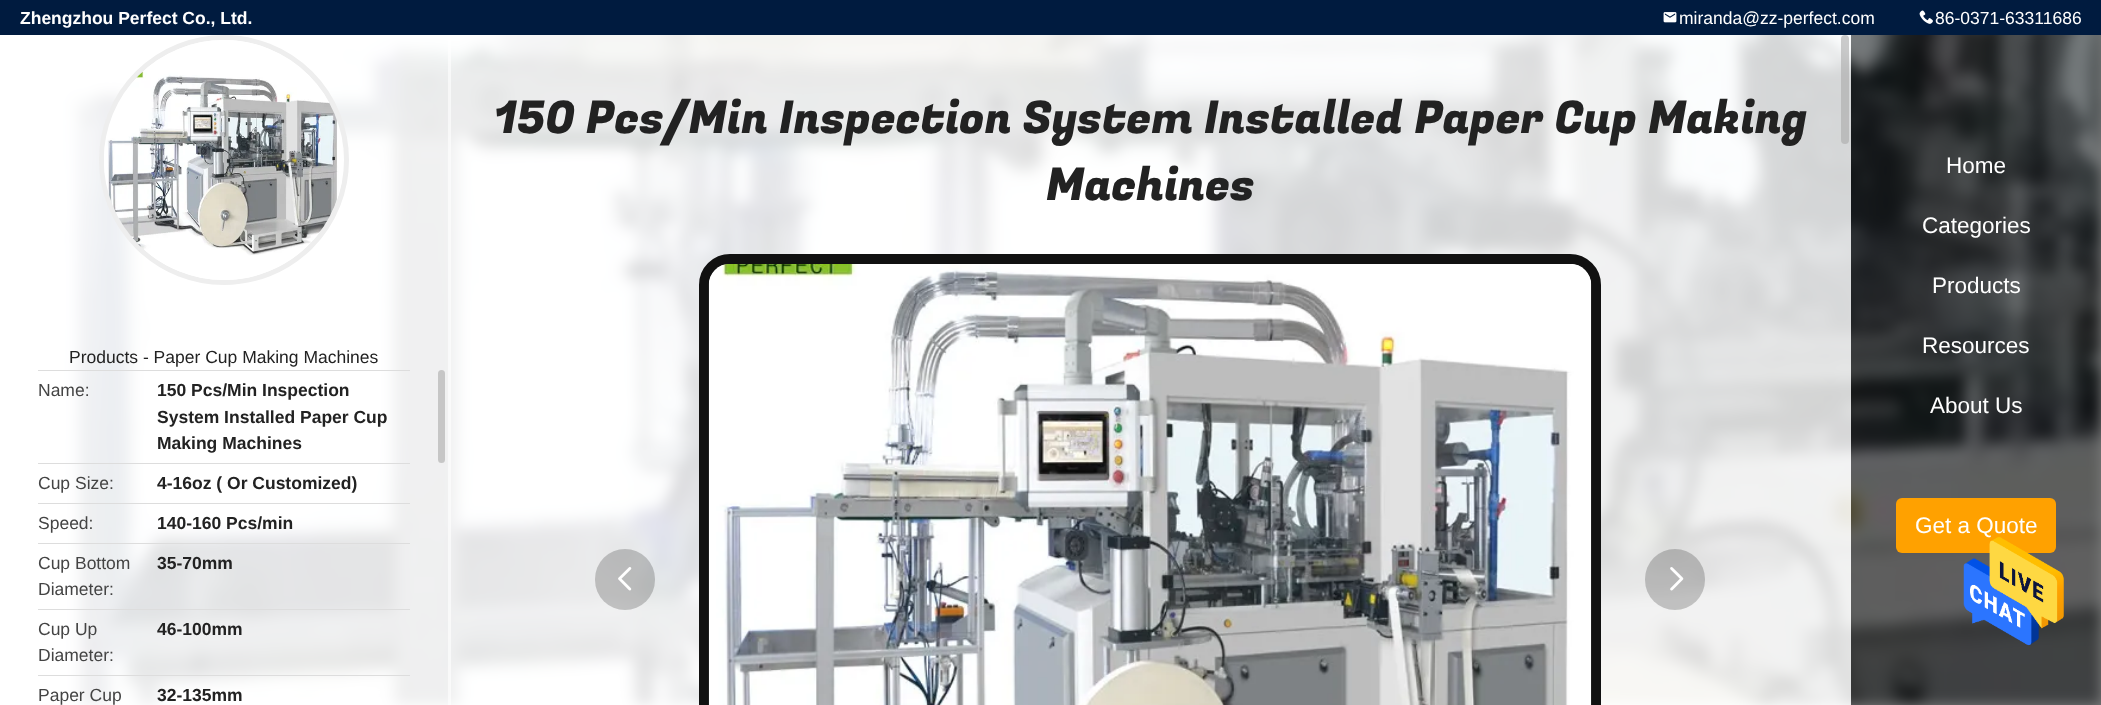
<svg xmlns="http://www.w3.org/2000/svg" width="2101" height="705">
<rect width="100%" height="100%" fill="#fff"/>
<rect width="2101" height="35" fill="#001b3f"/>
<text x="20" y="24" style="font-family:Liberation Sans;font-size:17.5px;font-weight:bold;fill:#fff">Zhengzhou Perfect Co., Ltd.</text>
<image x="1663" y="12" width="14" height="11" href="media/1.png"/>
<text x="1679" y="24" style="font-family:Liberation Sans;font-size:17.5px;fill:#fff">miranda@zz-perfect.com</text>
<image x="1919" y="10" width="14" height="14" href="media/2.png"/>
<text x="1935" y="24" style="font-family:Liberation Sans;font-size:17.5px;fill:#fff">86-0371-63311686</text>
<image x="63" y="35" width="2038" height="670" href="media/3.png"/>
<rect x="63" y="35" width="387" height="670" fill="#ffffffcc"/>
<rect x="448" y="35" width="3" height="670" fill="#ffffff99"/>
<circle cx="224" cy="160" r="122.5" fill="none" stroke="#eee" stroke-width="5"/>
<image x="104" y="40" width="238" height="240" href="media/4.png"/>
<text x="69" y="363" style="font-family:Liberation Sans;font-size:17.5px;fill:#222">Products - Paper Cup Making Machines</text>
<rect x="38" y="370" width="372" height="1" fill="#ddd"/>
<text x="38" y="396" style="font-family:Liberation Sans;font-size:17.5px;fill:#444">Name:</text>
<text x="157" y="396" style="font-family:Liberation Sans;font-size:17.5px;font-weight:bold;fill:#222">150 Pcs/Min Inspection</text>
<text x="157" y="423" style="font-family:Liberation Sans;font-size:17.5px;font-weight:bold;fill:#222">System Installed Paper Cup</text>
<text x="157" y="449" style="font-family:Liberation Sans;font-size:17.5px;font-weight:bold;fill:#222">Making Machines</text>
<rect x="38" y="463" width="372" height="1" fill="#ddd"/>
<text x="38" y="489" style="font-family:Liberation Sans;font-size:17.5px;fill:#444">Cup Size:</text>
<text x="157" y="489" style="font-family:Liberation Sans;font-size:17.5px;font-weight:bold;fill:#222">4-16oz ( Or Customized)</text>
<rect x="38" y="503" width="372" height="1" fill="#ddd"/>
<text x="38" y="529" style="font-family:Liberation Sans;font-size:17.5px;fill:#444">Speed:</text>
<text x="157" y="529" style="font-family:Liberation Sans;font-size:17.5px;font-weight:bold;fill:#222">140-160 Pcs/min</text>
<rect x="38" y="543" width="372" height="1" fill="#ddd"/>
<text x="38" y="569" style="font-family:Liberation Sans;font-size:17.5px;fill:#444">Cup Bottom</text>
<text x="38" y="595" style="font-family:Liberation Sans;font-size:17.5px;fill:#444">Diameter:</text>
<text x="157" y="569" style="font-family:Liberation Sans;font-size:17.5px;font-weight:bold;fill:#222">35-70mm</text>
<rect x="38" y="609" width="372" height="1" fill="#ddd"/>
<text x="38" y="635" style="font-family:Liberation Sans;font-size:17.5px;fill:#444">Cup Up</text>
<text x="38" y="661" style="font-family:Liberation Sans;font-size:17.5px;fill:#444">Diameter:</text>
<text x="157" y="635" style="font-family:Liberation Sans;font-size:17.5px;font-weight:bold;fill:#222">46-100mm</text>
<rect x="38" y="675" width="372" height="1" fill="#ddd"/>
<text x="38" y="701" style="font-family:Liberation Sans;font-size:17.5px;fill:#444">Paper Cup</text>
<text x="157" y="701" style="font-family:Liberation Sans;font-size:17.5px;font-weight:bold;fill:#222">32-135mm</text>
<rect x="438" y="370" width="7" height="93" rx="3.5" fill="#c6c6c6"/>
<rect x="450" y="35" width="1401" height="670" fill="#ffffffcc"/>
<text x="494" y="133" style="font-family:Fugaz One;font-size:45px;fill:#222">150 Pcs/Min Inspection System Installed Paper Cup Making</text>
<text x="1046" y="200" style="font-family:Fugaz One;font-size:45px;fill:#222">Machines</text>
<rect x="1841" y="35" width="8" height="109" rx="4" fill="#aaaaaa99"/>
<rect x="704" y="259" width="892" height="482" rx="26" fill="none" stroke="#111" stroke-width="10"/>
<image x="708" y="264" width="884" height="441" href="media/5.png"/>
<rect x="595" y="549" width="60" height="61" rx="30" fill="#00000033"/>
<image x="618" y="567" width="14" height="24" href="media/6.png"/>
<rect x="1645" y="549" width="60" height="61" rx="30" fill="#00000033"/>
<image x="1670" y="567" width="14" height="24" href="media/7.png"/>
<rect x="1851" y="35" width="250" height="670" fill="#00000080"/>
<text x="1946" y="173" style="font-family:Liberation Sans;font-size:22.5px;fill:#fff">Home</text>
<text x="1922" y="233" style="font-family:Liberation Sans;font-size:22.5px;fill:#fff">Categories</text>
<text x="1932" y="293" style="font-family:Liberation Sans;font-size:22.5px;fill:#fff">Products</text>
<text x="1922" y="353" style="font-family:Liberation Sans;font-size:22.5px;fill:#fff">Resources</text>
<text x="1930" y="413" style="font-family:Liberation Sans;font-size:22.5px;fill:#fff">About Us</text>
<rect x="1896" y="498" width="160" height="55" rx="6" fill="#ffa100"/>
<text x="1915" y="533" style="font-family:Liberation Sans;font-size:22.5px;fill:#fff">Get a Quote</text>
<image x="1963" y="537" width="101" height="109" href="media/8.png"/>
</svg>
